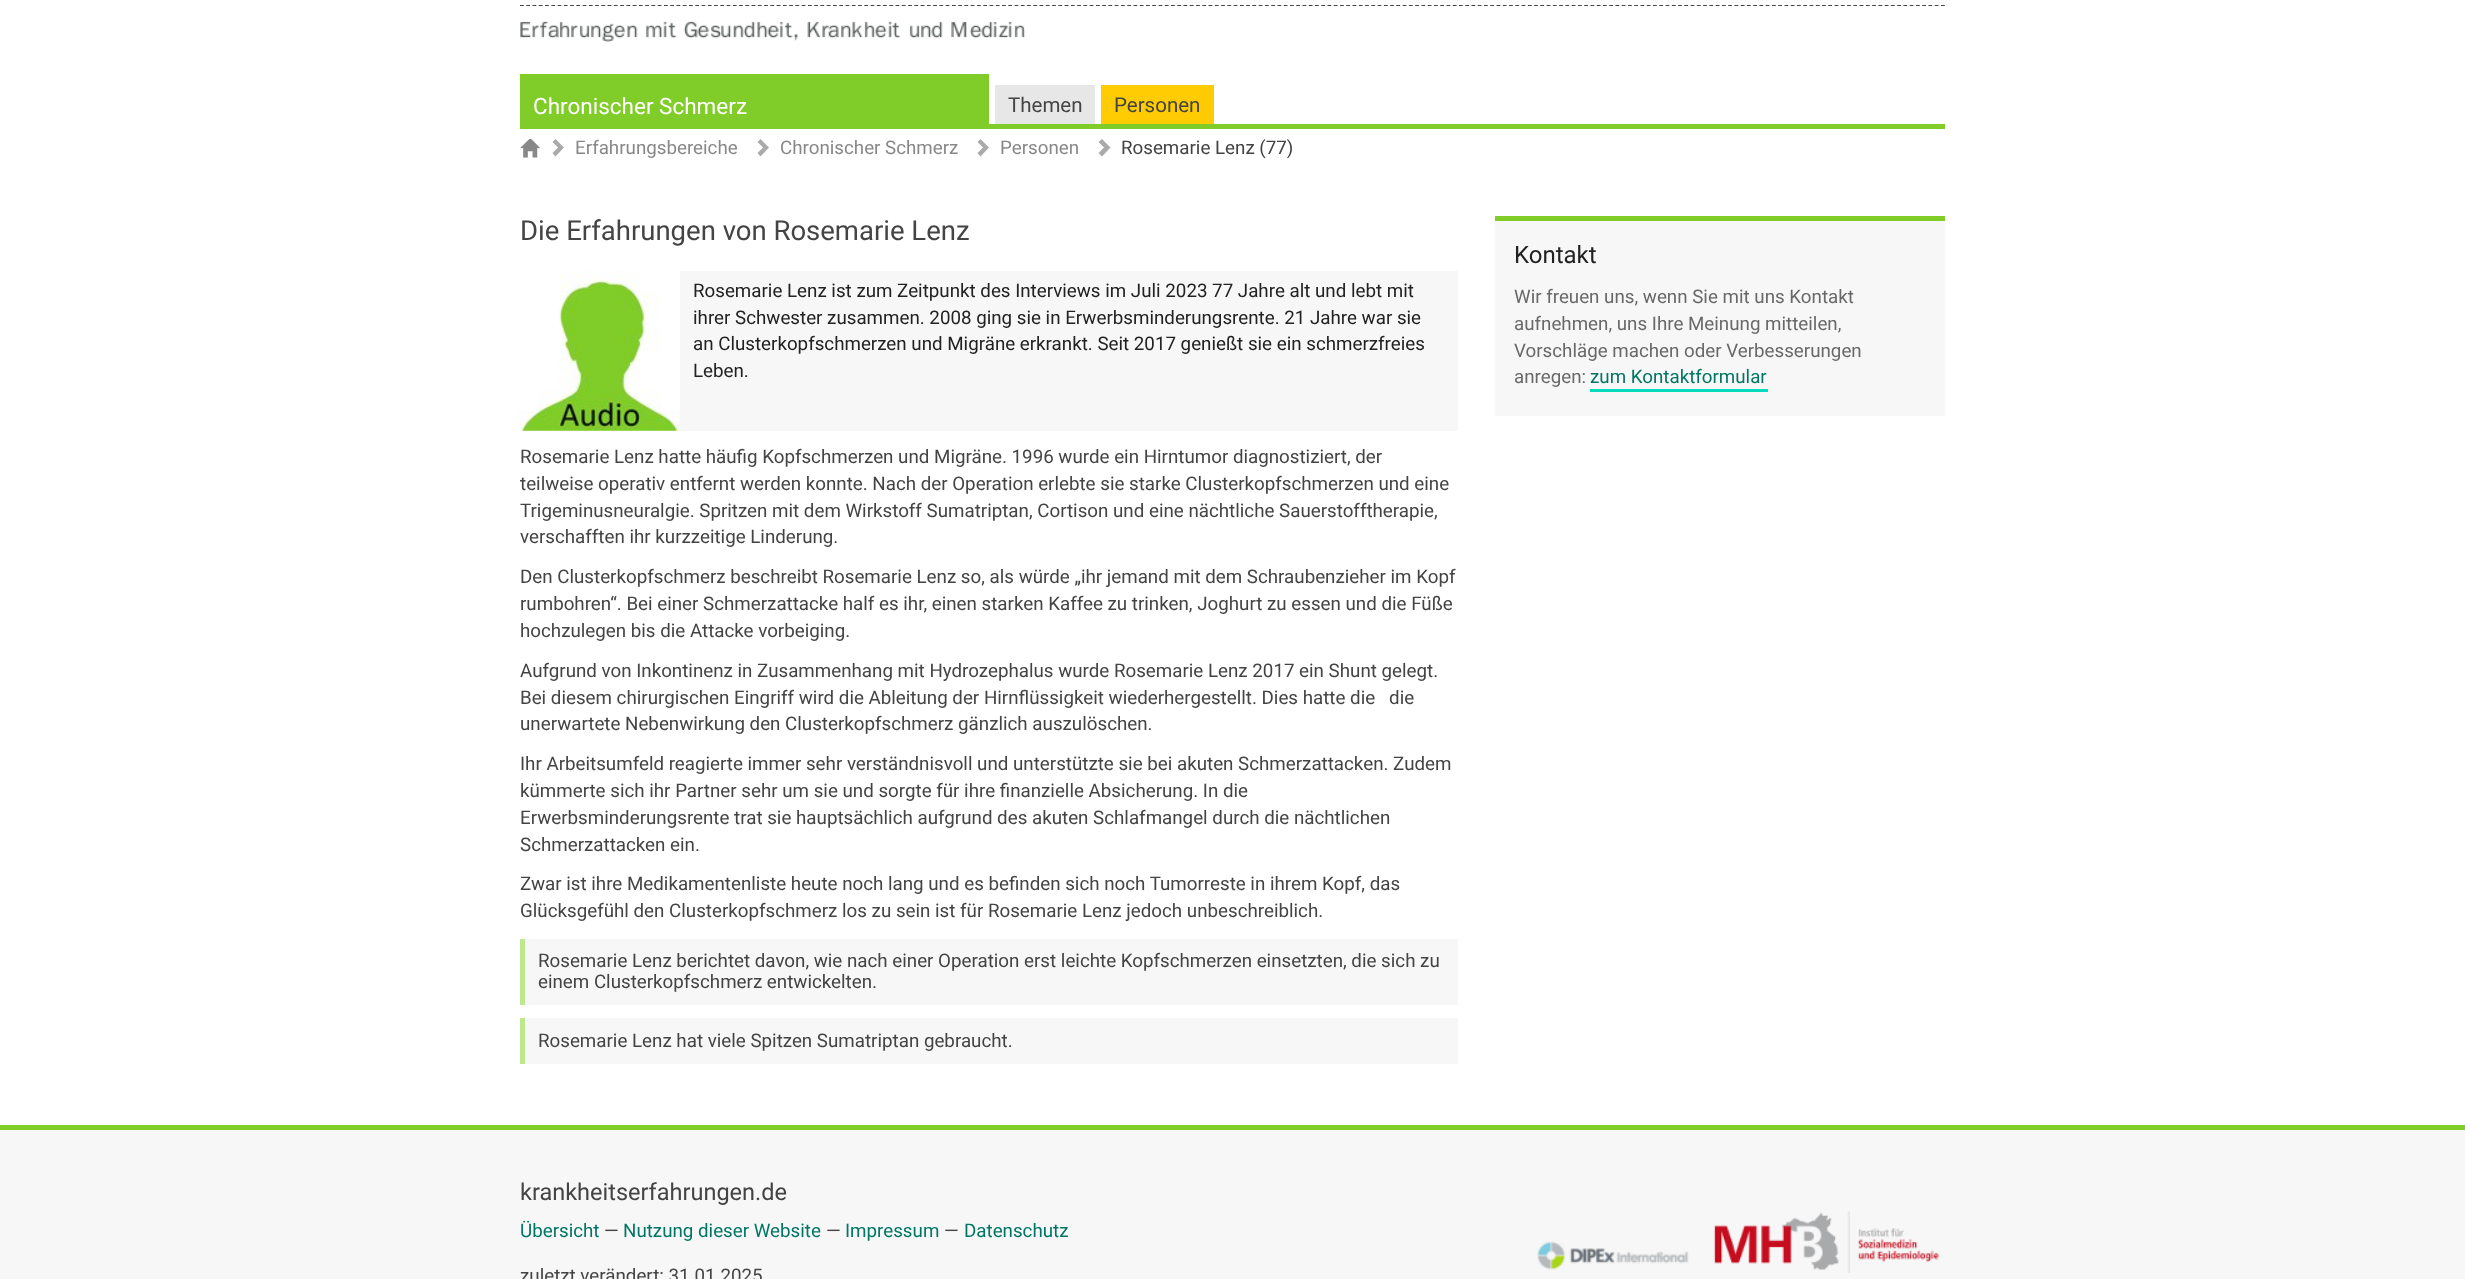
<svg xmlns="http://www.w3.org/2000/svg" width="2465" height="1279">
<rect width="100%" height="100%" fill="#fff"/>
<path d="M520 5.5h1425" fill="none" stroke="#444" stroke-width="1.2" stroke-dasharray="3.75 2.51"/>
<image x="520" y="21" width="505" height="22" href="media/1.png"/>
<rect x="520" y="124" width="1425" height="5" fill="#80cc28"/>
<rect x="520" y="74" width="469" height="50" fill="#80cc28"/>
<text x="533" y="114" style="font-family:Roboto;font-size:22.5px;fill:#fff">Chronischer Schmerz</text>
<rect x="995" y="85" width="100" height="39" fill="#e7e7e7"/>
<text x="1008" y="112" style="font-family:Roboto;font-size:20.5px;fill:#444">Themen</text>
<rect x="1101" y="85" width="113" height="39" fill="#ffcc03"/>
<text x="1114" y="112" style="font-family:Roboto;font-size:20.5px;fill:#444">Personen</text>
<image x="520" y="139" width="20" height="19" href="media/2.png"/>
<path d="M564 147.5l-8.5 9l-3-3.5l5.5-5.5l-5.5-5.5l3-3z" fill="#aaa"/>
<text x="575" y="154" style="font-family:Roboto;font-size:18.75px;fill:#888">Erfahrungsbereiche</text>
<path d="M769 147.5l-8.5 9l-3-3.5l5.5-5.5l-5.5-5.5l3-3z" fill="#aaa"/>
<text x="780" y="154" style="font-family:Roboto;font-size:18.75px;fill:#888">Chronischer Schmerz</text>
<path d="M989 147.5l-8.5 9l-3-3.5l5.5-5.5l-5.5-5.5l3-3z" fill="#aaa"/>
<text x="1000" y="154" style="font-family:Roboto;font-size:18.75px;fill:#888">Personen</text>
<path d="M1110.5 147.5l-8.5 9l-3.5-3.5l5.5-5.5l-5.5-5.5l3.5-3z" fill="#aaa"/>
<text x="1121" y="154" style="font-family:Roboto;font-size:18.75px;fill:#444">Rosemarie Lenz (77)</text>
<text x="520" y="240" style="font-family:Roboto;font-size:27.5px;fill:#444">Die Erfahrungen von Rosemarie Lenz</text>
<rect x="520" y="271" width="938" height="160" fill="#f7f7f7"/>
<image x="520" y="271" width="160" height="160" href="media/3.png"/>
<text x="693" y="297" style="font-family:Roboto;font-size:18.75px;fill:#222">Rosemarie Lenz ist zum Zeitpunkt des Interviews im Juli 2023 77 Jahre alt und lebt mit</text>
<text x="693" y="324" style="font-family:Roboto;font-size:18.75px;fill:#222">ihrer Schwester zusammen. 2008 ging sie in Erwerbsminderungsrente. 21 Jahre war sie</text>
<text x="693" y="350" style="font-family:Roboto;font-size:18.75px;fill:#222">an Clusterkopfschmerzen und Migräne erkrankt. Seit 2017 genießt sie ein schmerzfreies</text>
<text x="693" y="377" style="font-family:Roboto;font-size:18.75px;fill:#222">Leben.</text>
<text x="520" y="463" style="font-family:Roboto;font-size:18.75px;fill:#444">Rosemarie Lenz hatte häufig Kopfschmerzen und Migräne. 1996 wurde ein Hirntumor diagnostiziert, der</text>
<text x="520" y="490" style="font-family:Roboto;font-size:18.75px;fill:#444">teilweise operativ entfernt werden konnte. Nach der Operation erlebte sie starke Clusterkopfschmerzen und eine</text>
<text x="520" y="517" style="font-family:Roboto;font-size:18.75px;fill:#444">Trigeminusneuralgie. Spritzen mit dem Wirkstoff Sumatriptan, Cortison und eine nächtliche Sauerstofftherapie,</text>
<text x="520" y="543" style="font-family:Roboto;font-size:18.75px;fill:#444">verschafften ihr kurzzeitige Linderung.</text>
<text x="520" y="583" style="font-family:Roboto;font-size:18.75px;fill:#444">Den Clusterkopfschmerz beschreibt Rosemarie Lenz so, als würde „ihr jemand mit dem Schraubenzieher im Kopf</text>
<text x="520" y="610" style="font-family:Roboto;font-size:18.75px;fill:#444">rumbohren“. Bei einer Schmerzattacke half es ihr, einen starken Kaffee zu trinken, Joghurt zu essen und die Füße</text>
<text x="520" y="637" style="font-family:Roboto;font-size:18.75px;fill:#444">hochzulegen bis die Attacke vorbeiging.</text>
<text x="520" y="677" style="font-family:Roboto;font-size:18.75px;fill:#444">Aufgrund von Inkontinenz in Zusammenhang mit Hydrozephalus wurde Rosemarie Lenz 2017 ein Shunt gelegt.</text>
<text x="520" y="704" style="font-family:Roboto;font-size:18.75px;fill:#444" xml:space="preserve">Bei diesem chirurgischen Eingriff wird die Ableitung der Hirnflüssigkeit wiederhergestellt. Dies hatte die   die</text>
<text x="520" y="730" style="font-family:Roboto;font-size:18.75px;fill:#444">unerwartete Nebenwirkung den Clusterkopfschmerz gänzlich auszulöschen.</text>
<text x="520" y="770" style="font-family:Roboto;font-size:18.75px;fill:#444">Ihr Arbeitsumfeld reagierte immer sehr verständnisvoll und unterstützte sie bei akuten Schmerzattacken. Zudem</text>
<text x="520" y="797" style="font-family:Roboto;font-size:18.75px;fill:#444">kümmerte sich ihr Partner sehr um sie und sorgte für ihre finanzielle Absicherung. In die</text>
<text x="520" y="824" style="font-family:Roboto;font-size:18.75px;fill:#444">Erwerbsminderungsrente trat sie hauptsächlich aufgrund des akuten Schlafmangel durch die nächtlichen</text>
<text x="520" y="851" style="font-family:Roboto;font-size:18.75px;fill:#444">Schmerzattacken ein.</text>
<text x="520" y="890" style="font-family:Roboto;font-size:18.75px;fill:#444">Zwar ist ihre Medikamentenliste heute noch lang und es befinden sich noch Tumorreste in ihrem Kopf, das</text>
<text x="520" y="917" style="font-family:Roboto;font-size:18.75px;fill:#444">Glücksgefühl den Clusterkopfschmerz los zu sein ist für Rosemarie Lenz jedoch unbeschreiblich.</text>
<rect x="525" y="939" width="933" height="66" fill="#f7f7f7"/>
<rect x="520" y="939" width="5" height="66" fill="#bde88b"/>
<text x="538" y="967" style="font-family:Roboto;font-size:18.75px;fill:#444">Rosemarie Lenz berichtet davon, wie nach einer Operation erst leichte Kopfschmerzen einsetzten, die sich zu</text>
<text x="538" y="988" style="font-family:Roboto;font-size:18.75px;fill:#444">einem Clusterkopfschmerz entwickelten.</text>
<rect x="525" y="1018" width="933" height="46" fill="#f7f7f7"/>
<rect x="520" y="1018" width="5" height="46" fill="#bde88b"/>
<text x="538" y="1047" style="font-family:Roboto;font-size:18.75px;fill:#444">Rosemarie Lenz hat viele Spitzen Sumatriptan gebraucht.</text>
<rect x="1495" y="221" width="450" height="195" fill="#f7f7f7"/>
<rect x="1495" y="216" width="450" height="5" fill="#80cc28"/>
<text x="1514" y="263" style="font-family:Roboto;font-size:24px;fill:#222">Kontakt</text>
<text x="1514" y="303" style="font-family:Roboto;font-size:18.75px;fill:#696969">Wir freuen uns, wenn Sie mit uns Kontakt</text>
<text x="1514" y="330" style="font-family:Roboto;font-size:18.75px;fill:#696969">aufnehmen, uns Ihre Meinung mitteilen,</text>
<text x="1514" y="357" style="font-family:Roboto;font-size:18.75px;fill:#696969">Vorschläge machen oder Verbesserungen</text>
<text x="1514" y="383" style="font-family:Roboto;font-size:18.75px;fill:#696969">anregen:</text>
<text x="1590" y="383" style="font-family:Roboto;font-size:18.75px;fill:#017665">zum Kontaktformular</text>
<rect x="1590" y="389" width="178" height="3" fill="#02dbbc"/>
<rect y="1130" width="2465" height="149" fill="#f7f7f7"/>
<rect y="1125" width="2465" height="5" fill="#80cc28"/>
<text x="520" y="1200" style="font-family:Roboto;font-size:23.5px;fill:#444">krankheitserfahrungen.de</text>
<text x="520" y="1237" style="font-family:Roboto;font-size:18.75px;fill:#017665">Übersicht</text>
<text x="604" y="1237" style="font-family:Roboto;font-size:18.75px;fill:#444">—</text>
<text x="623" y="1237" style="font-family:Roboto;font-size:18.75px;fill:#017665">Nutzung dieser Website</text>
<text x="826" y="1237" style="font-family:Roboto;font-size:18.75px;fill:#444">—</text>
<text x="845" y="1237" style="font-family:Roboto;font-size:18.75px;fill:#017665">Impressum</text>
<text x="944" y="1237" style="font-family:Roboto;font-size:18.75px;fill:#444">—</text>
<text x="964" y="1237" style="font-family:Roboto;font-size:18.75px;fill:#017665">Datenschutz</text>
<text x="520" y="1282" style="font-family:Roboto;font-size:18.75px;fill:#444">zuletzt verändert: 31.01.2025</text>
<image x="1537" y="1211" width="402" height="62" href="media/4.png"/>
</svg>
